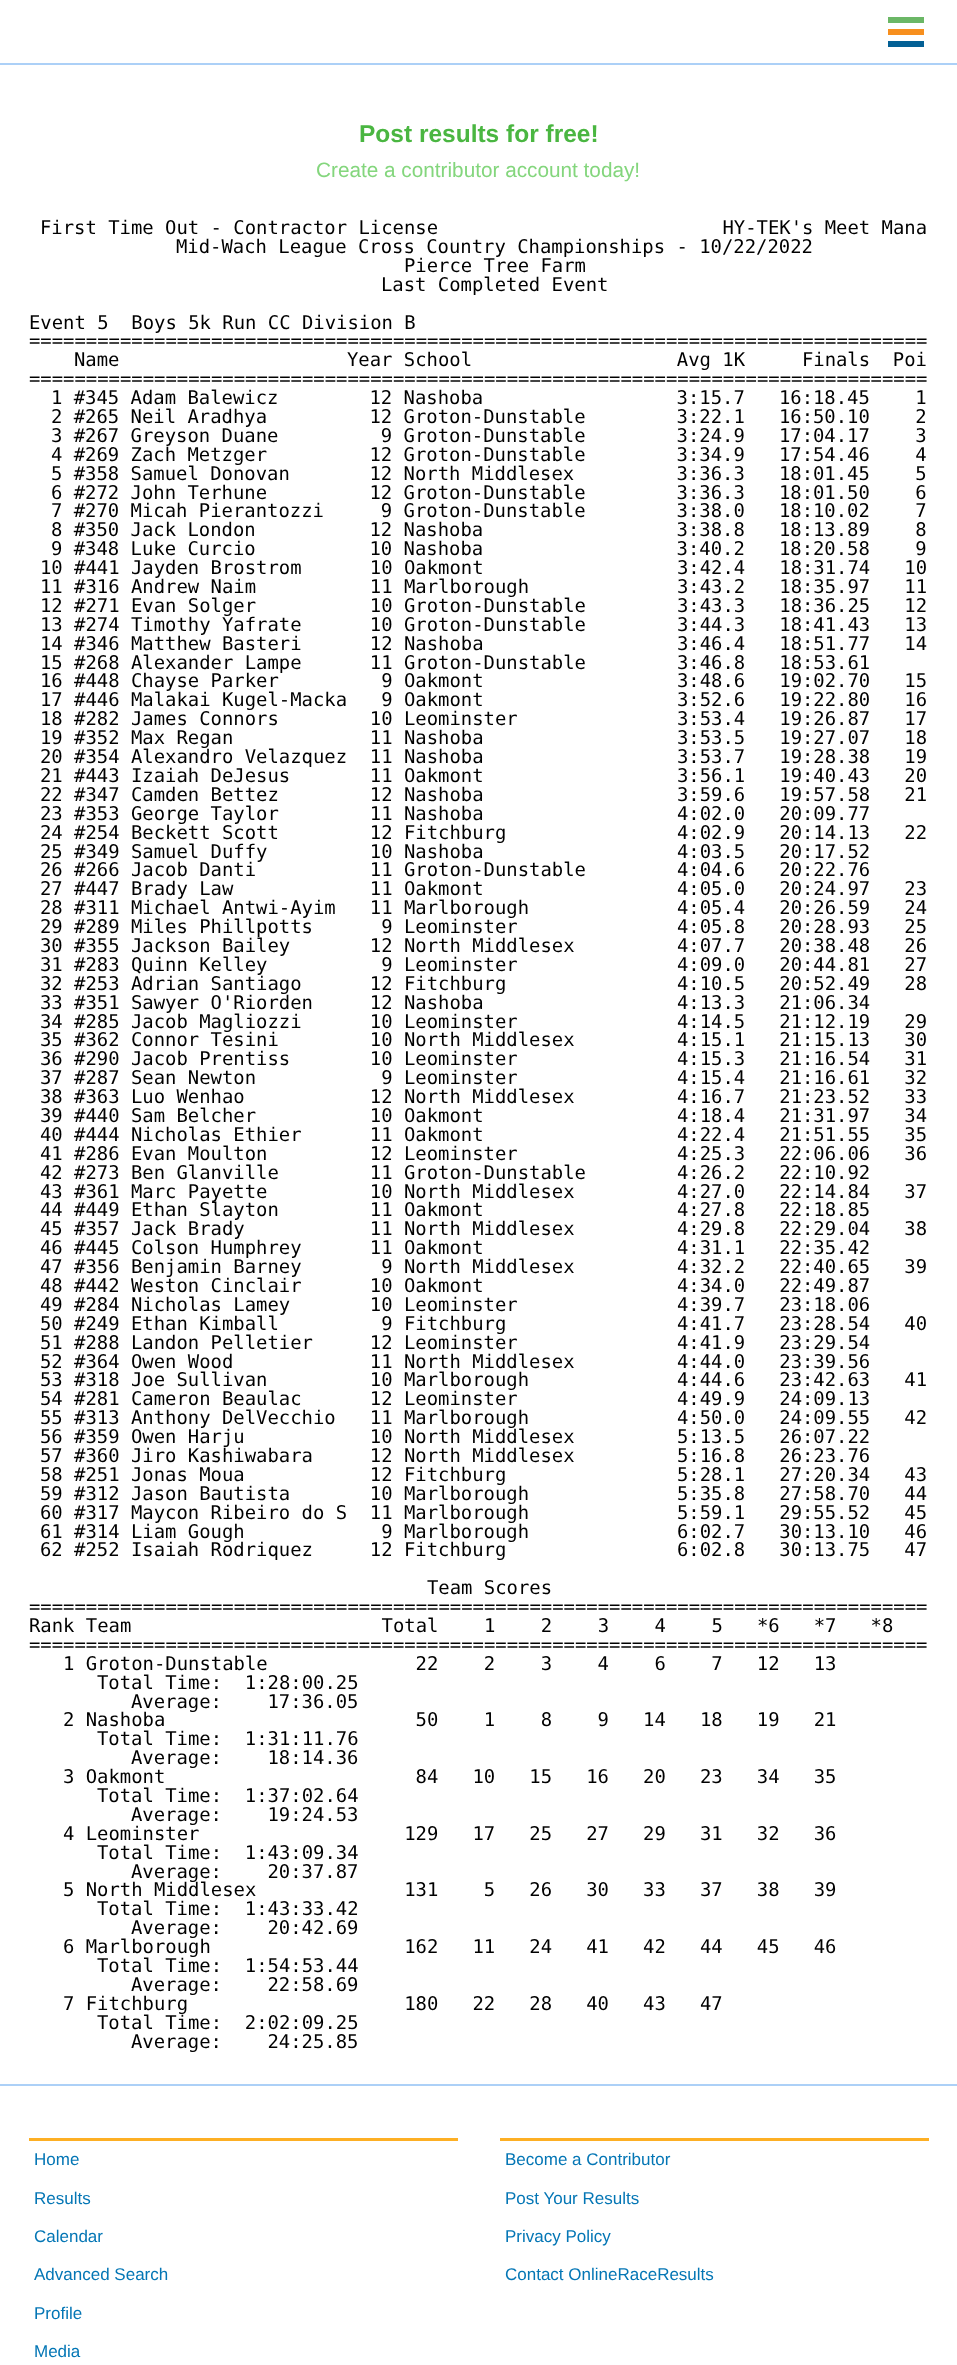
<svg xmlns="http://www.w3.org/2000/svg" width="957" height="2365">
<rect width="100%" height="100%" fill="#fff"/>
<rect y="63" width="957" height="2" fill="#acd0f7"/>
<rect x="888" y="17" width="36" height="6" fill="#6bb766"/>
<rect x="888" y="29" width="36" height="6" fill="#f78f1e"/>
<rect x="888" y="41" width="36" height="6" fill="#036095"/>
<text x="359" y="142" style="font-family:Liberation Sans;font-size:24.5px;font-weight:bold;fill:#4ab641">Post results for free!</text>
<text x="316" y="177" style="font-family:Liberation Sans;font-size:20.75px;fill:#84d67d">Create a contributor account today!</text>
<text x="40" y="234" style="font-family:DejaVu Sans Mono;font-size:18.9px;fill:#000" xml:space="preserve">First Time Out - Contractor License                         HY-TEK's Meet Mana</text>
<text x="176" y="253" style="font-family:DejaVu Sans Mono;font-size:18.9px;fill:#000">Mid-Wach League Cross Country Championships - 10/22/2022</text>
<text x="404" y="272" style="font-family:DejaVu Sans Mono;font-size:18.9px;fill:#000">Pierce Tree Farm</text>
<text x="381" y="291" style="font-family:DejaVu Sans Mono;font-size:18.9px;fill:#000">Last Completed Event</text>
<text x="29" y="329" style="font-family:DejaVu Sans Mono;font-size:18.9px;fill:#000" xml:space="preserve">Event 5  Boys 5k Run CC Division B</text>
<text x="29" y="347" style="font-family:DejaVu Sans Mono;font-size:18.9px;fill:#000">===============================================================================</text>
<text x="74" y="366" style="font-family:DejaVu Sans Mono;font-size:18.9px;fill:#000" xml:space="preserve">Name                    Year School                  Avg 1K     Finals  Poi</text>
<text x="29" y="385" style="font-family:DejaVu Sans Mono;font-size:18.9px;fill:#000">===============================================================================</text>
<text x="51" y="404" style="font-family:DejaVu Sans Mono;font-size:18.9px;fill:#000" xml:space="preserve">1 #345 Adam Balewicz        12 Nashoba                 3:15.7   16:18.45    1</text>
<text x="51" y="423" style="font-family:DejaVu Sans Mono;font-size:18.9px;fill:#000" xml:space="preserve">2 #265 Neil Aradhya         12 Groton-Dunstable        3:22.1   16:50.10    2</text>
<text x="51" y="442" style="font-family:DejaVu Sans Mono;font-size:18.9px;fill:#000" xml:space="preserve">3 #267 Greyson Duane         9 Groton-Dunstable        3:24.9   17:04.17    3</text>
<text x="51" y="461" style="font-family:DejaVu Sans Mono;font-size:18.9px;fill:#000" xml:space="preserve">4 #269 Zach Metzger         12 Groton-Dunstable        3:34.9   17:54.46    4</text>
<text x="51" y="480" style="font-family:DejaVu Sans Mono;font-size:18.9px;fill:#000" xml:space="preserve">5 #358 Samuel Donovan       12 North Middlesex         3:36.3   18:01.45    5</text>
<text x="51" y="499" style="font-family:DejaVu Sans Mono;font-size:18.9px;fill:#000" xml:space="preserve">6 #272 John Terhune         12 Groton-Dunstable        3:36.3   18:01.50    6</text>
<text x="51" y="517" style="font-family:DejaVu Sans Mono;font-size:18.9px;fill:#000" xml:space="preserve">7 #270 Micah Pierantozzi     9 Groton-Dunstable        3:38.0   18:10.02    7</text>
<text x="51" y="536" style="font-family:DejaVu Sans Mono;font-size:18.9px;fill:#000" xml:space="preserve">8 #350 Jack London          12 Nashoba                 3:38.8   18:13.89    8</text>
<text x="51" y="555" style="font-family:DejaVu Sans Mono;font-size:18.9px;fill:#000" xml:space="preserve">9 #348 Luke Curcio          10 Nashoba                 3:40.2   18:20.58    9</text>
<text x="40" y="574" style="font-family:DejaVu Sans Mono;font-size:18.9px;fill:#000" xml:space="preserve">10 #441 Jayden Brostrom      10 Oakmont                 3:42.4   18:31.74   10</text>
<text x="40" y="593" style="font-family:DejaVu Sans Mono;font-size:18.9px;fill:#000" xml:space="preserve">11 #316 Andrew Naim          11 Marlborough             3:43.2   18:35.97   11</text>
<text x="40" y="612" style="font-family:DejaVu Sans Mono;font-size:18.9px;fill:#000" xml:space="preserve">12 #271 Evan Solger          10 Groton-Dunstable        3:43.3   18:36.25   12</text>
<text x="40" y="631" style="font-family:DejaVu Sans Mono;font-size:18.9px;fill:#000" xml:space="preserve">13 #274 Timothy Yafrate      10 Groton-Dunstable        3:44.3   18:41.43   13</text>
<text x="40" y="650" style="font-family:DejaVu Sans Mono;font-size:18.9px;fill:#000" xml:space="preserve">14 #346 Matthew Basteri      12 Nashoba                 3:46.4   18:51.77   14</text>
<text x="40" y="669" style="font-family:DejaVu Sans Mono;font-size:18.9px;fill:#000" xml:space="preserve">15 #268 Alexander Lampe      11 Groton-Dunstable        3:46.8   18:53.61</text>
<text x="40" y="687" style="font-family:DejaVu Sans Mono;font-size:18.9px;fill:#000" xml:space="preserve">16 #448 Chayse Parker         9 Oakmont                 3:48.6   19:02.70   15</text>
<text x="40" y="706" style="font-family:DejaVu Sans Mono;font-size:18.9px;fill:#000" xml:space="preserve">17 #446 Malakai Kugel-Macka   9 Oakmont                 3:52.6   19:22.80   16</text>
<text x="40" y="725" style="font-family:DejaVu Sans Mono;font-size:18.9px;fill:#000" xml:space="preserve">18 #282 James Connors        10 Leominster              3:53.4   19:26.87   17</text>
<text x="40" y="744" style="font-family:DejaVu Sans Mono;font-size:18.9px;fill:#000" xml:space="preserve">19 #352 Max Regan            11 Nashoba                 3:53.5   19:27.07   18</text>
<text x="40" y="763" style="font-family:DejaVu Sans Mono;font-size:18.9px;fill:#000" xml:space="preserve">20 #354 Alexandro Velazquez  11 Nashoba                 3:53.7   19:28.38   19</text>
<text x="40" y="782" style="font-family:DejaVu Sans Mono;font-size:18.9px;fill:#000" xml:space="preserve">21 #443 Izaiah DeJesus       11 Oakmont                 3:56.1   19:40.43   20</text>
<text x="40" y="801" style="font-family:DejaVu Sans Mono;font-size:18.9px;fill:#000" xml:space="preserve">22 #347 Camden Bettez        12 Nashoba                 3:59.6   19:57.58   21</text>
<text x="40" y="820" style="font-family:DejaVu Sans Mono;font-size:18.9px;fill:#000" xml:space="preserve">23 #353 George Taylor        11 Nashoba                 4:02.0   20:09.77</text>
<text x="40" y="839" style="font-family:DejaVu Sans Mono;font-size:18.9px;fill:#000" xml:space="preserve">24 #254 Beckett Scott        12 Fitchburg               4:02.9   20:14.13   22</text>
<text x="40" y="858" style="font-family:DejaVu Sans Mono;font-size:18.9px;fill:#000" xml:space="preserve">25 #349 Samuel Duffy         10 Nashoba                 4:03.5   20:17.52</text>
<text x="40" y="876" style="font-family:DejaVu Sans Mono;font-size:18.9px;fill:#000" xml:space="preserve">26 #266 Jacob Danti          11 Groton-Dunstable        4:04.6   20:22.76</text>
<text x="40" y="895" style="font-family:DejaVu Sans Mono;font-size:18.9px;fill:#000" xml:space="preserve">27 #447 Brady Law            11 Oakmont                 4:05.0   20:24.97   23</text>
<text x="40" y="914" style="font-family:DejaVu Sans Mono;font-size:18.9px;fill:#000" xml:space="preserve">28 #311 Michael Antwi-Ayim   11 Marlborough             4:05.4   20:26.59   24</text>
<text x="40" y="933" style="font-family:DejaVu Sans Mono;font-size:18.9px;fill:#000" xml:space="preserve">29 #289 Miles Phillpotts      9 Leominster              4:05.8   20:28.93   25</text>
<text x="40" y="952" style="font-family:DejaVu Sans Mono;font-size:18.9px;fill:#000" xml:space="preserve">30 #355 Jackson Bailey       12 North Middlesex         4:07.7   20:38.48   26</text>
<text x="40" y="971" style="font-family:DejaVu Sans Mono;font-size:18.9px;fill:#000" xml:space="preserve">31 #283 Quinn Kelley          9 Leominster              4:09.0   20:44.81   27</text>
<text x="40" y="990" style="font-family:DejaVu Sans Mono;font-size:18.9px;fill:#000" xml:space="preserve">32 #253 Adrian Santiago      12 Fitchburg               4:10.5   20:52.49   28</text>
<text x="40" y="1009" style="font-family:DejaVu Sans Mono;font-size:18.9px;fill:#000" xml:space="preserve">33 #351 Sawyer O'Riorden     12 Nashoba                 4:13.3   21:06.34</text>
<text x="40" y="1028" style="font-family:DejaVu Sans Mono;font-size:18.9px;fill:#000" xml:space="preserve">34 #285 Jacob Magliozzi      10 Leominster              4:14.5   21:12.19   29</text>
<text x="40" y="1046" style="font-family:DejaVu Sans Mono;font-size:18.9px;fill:#000" xml:space="preserve">35 #362 Connor Tesini        10 North Middlesex         4:15.1   21:15.13   30</text>
<text x="40" y="1065" style="font-family:DejaVu Sans Mono;font-size:18.9px;fill:#000" xml:space="preserve">36 #290 Jacob Prentiss       10 Leominster              4:15.3   21:16.54   31</text>
<text x="40" y="1084" style="font-family:DejaVu Sans Mono;font-size:18.9px;fill:#000" xml:space="preserve">37 #287 Sean Newton           9 Leominster              4:15.4   21:16.61   32</text>
<text x="40" y="1103" style="font-family:DejaVu Sans Mono;font-size:18.9px;fill:#000" xml:space="preserve">38 #363 Luo Wenhao           12 North Middlesex         4:16.7   21:23.52   33</text>
<text x="40" y="1122" style="font-family:DejaVu Sans Mono;font-size:18.9px;fill:#000" xml:space="preserve">39 #440 Sam Belcher          10 Oakmont                 4:18.4   21:31.97   34</text>
<text x="40" y="1141" style="font-family:DejaVu Sans Mono;font-size:18.9px;fill:#000" xml:space="preserve">40 #444 Nicholas Ethier      11 Oakmont                 4:22.4   21:51.55   35</text>
<text x="40" y="1160" style="font-family:DejaVu Sans Mono;font-size:18.9px;fill:#000" xml:space="preserve">41 #286 Evan Moulton         12 Leominster              4:25.3   22:06.06   36</text>
<text x="40" y="1179" style="font-family:DejaVu Sans Mono;font-size:18.9px;fill:#000" xml:space="preserve">42 #273 Ben Glanville        11 Groton-Dunstable        4:26.2   22:10.92</text>
<text x="40" y="1198" style="font-family:DejaVu Sans Mono;font-size:18.9px;fill:#000" xml:space="preserve">43 #361 Marc Payette         10 North Middlesex         4:27.0   22:14.84   37</text>
<text x="40" y="1216" style="font-family:DejaVu Sans Mono;font-size:18.9px;fill:#000" xml:space="preserve">44 #449 Ethan Slayton        11 Oakmont                 4:27.8   22:18.85</text>
<text x="40" y="1235" style="font-family:DejaVu Sans Mono;font-size:18.9px;fill:#000" xml:space="preserve">45 #357 Jack Brady           11 North Middlesex         4:29.8   22:29.04   38</text>
<text x="40" y="1254" style="font-family:DejaVu Sans Mono;font-size:18.9px;fill:#000" xml:space="preserve">46 #445 Colson Humphrey      11 Oakmont                 4:31.1   22:35.42</text>
<text x="40" y="1273" style="font-family:DejaVu Sans Mono;font-size:18.9px;fill:#000" xml:space="preserve">47 #356 Benjamin Barney       9 North Middlesex         4:32.2   22:40.65   39</text>
<text x="40" y="1292" style="font-family:DejaVu Sans Mono;font-size:18.9px;fill:#000" xml:space="preserve">48 #442 Weston Cinclair      10 Oakmont                 4:34.0   22:49.87</text>
<text x="40" y="1311" style="font-family:DejaVu Sans Mono;font-size:18.9px;fill:#000" xml:space="preserve">49 #284 Nicholas Lamey       10 Leominster              4:39.7   23:18.06</text>
<text x="40" y="1330" style="font-family:DejaVu Sans Mono;font-size:18.9px;fill:#000" xml:space="preserve">50 #249 Ethan Kimball         9 Fitchburg               4:41.7   23:28.54   40</text>
<text x="40" y="1349" style="font-family:DejaVu Sans Mono;font-size:18.9px;fill:#000" xml:space="preserve">51 #288 Landon Pelletier     12 Leominster              4:41.9   23:29.54</text>
<text x="40" y="1368" style="font-family:DejaVu Sans Mono;font-size:18.9px;fill:#000" xml:space="preserve">52 #364 Owen Wood            11 North Middlesex         4:44.0   23:39.56</text>
<text x="40" y="1386" style="font-family:DejaVu Sans Mono;font-size:18.9px;fill:#000" xml:space="preserve">53 #318 Joe Sullivan         10 Marlborough             4:44.6   23:42.63   41</text>
<text x="40" y="1405" style="font-family:DejaVu Sans Mono;font-size:18.9px;fill:#000" xml:space="preserve">54 #281 Cameron Beaulac      12 Leominster              4:49.9   24:09.13</text>
<text x="40" y="1424" style="font-family:DejaVu Sans Mono;font-size:18.9px;fill:#000" xml:space="preserve">55 #313 Anthony DelVecchio   11 Marlborough             4:50.0   24:09.55   42</text>
<text x="40" y="1443" style="font-family:DejaVu Sans Mono;font-size:18.9px;fill:#000" xml:space="preserve">56 #359 Owen Harju           10 North Middlesex         5:13.5   26:07.22</text>
<text x="40" y="1462" style="font-family:DejaVu Sans Mono;font-size:18.9px;fill:#000" xml:space="preserve">57 #360 Jiro Kashiwabara     12 North Middlesex         5:16.8   26:23.76</text>
<text x="40" y="1481" style="font-family:DejaVu Sans Mono;font-size:18.9px;fill:#000" xml:space="preserve">58 #251 Jonas Moua           12 Fitchburg               5:28.1   27:20.34   43</text>
<text x="40" y="1500" style="font-family:DejaVu Sans Mono;font-size:18.9px;fill:#000" xml:space="preserve">59 #312 Jason Bautista       10 Marlborough             5:35.8   27:58.70   44</text>
<text x="40" y="1519" style="font-family:DejaVu Sans Mono;font-size:18.9px;fill:#000" xml:space="preserve">60 #317 Maycon Ribeiro do S  11 Marlborough             5:59.1   29:55.52   45</text>
<text x="40" y="1538" style="font-family:DejaVu Sans Mono;font-size:18.9px;fill:#000" xml:space="preserve">61 #314 Liam Gough            9 Marlborough             6:02.7   30:13.10   46</text>
<text x="40" y="1556" style="font-family:DejaVu Sans Mono;font-size:18.9px;fill:#000" xml:space="preserve">62 #252 Isaiah Rodriquez     12 Fitchburg               6:02.8   30:13.75   47</text>
<text x="427" y="1594" style="font-family:DejaVu Sans Mono;font-size:18.9px;fill:#000">Team Scores</text>
<text x="29" y="1613" style="font-family:DejaVu Sans Mono;font-size:18.9px;fill:#000">===============================================================================</text>
<text x="29" y="1632" style="font-family:DejaVu Sans Mono;font-size:18.9px;fill:#000" xml:space="preserve">Rank Team                      Total    1    2    3    4    5   *6   *7   *8</text>
<text x="29" y="1651" style="font-family:DejaVu Sans Mono;font-size:18.9px;fill:#000">===============================================================================</text>
<text x="63" y="1670" style="font-family:DejaVu Sans Mono;font-size:18.9px;fill:#000" xml:space="preserve">1 Groton-Dunstable             22    2    3    4    6    7   12   13</text>
<text x="97" y="1689" style="font-family:DejaVu Sans Mono;font-size:18.9px;fill:#000" xml:space="preserve">Total Time:  1:28:00.25</text>
<text x="131" y="1708" style="font-family:DejaVu Sans Mono;font-size:18.9px;fill:#000" xml:space="preserve">Average:    17:36.05</text>
<text x="63" y="1726" style="font-family:DejaVu Sans Mono;font-size:18.9px;fill:#000" xml:space="preserve">2 Nashoba                      50    1    8    9   14   18   19   21</text>
<text x="97" y="1745" style="font-family:DejaVu Sans Mono;font-size:18.9px;fill:#000" xml:space="preserve">Total Time:  1:31:11.76</text>
<text x="131" y="1764" style="font-family:DejaVu Sans Mono;font-size:18.9px;fill:#000" xml:space="preserve">Average:    18:14.36</text>
<text x="63" y="1783" style="font-family:DejaVu Sans Mono;font-size:18.9px;fill:#000" xml:space="preserve">3 Oakmont                      84   10   15   16   20   23   34   35</text>
<text x="97" y="1802" style="font-family:DejaVu Sans Mono;font-size:18.9px;fill:#000" xml:space="preserve">Total Time:  1:37:02.64</text>
<text x="131" y="1821" style="font-family:DejaVu Sans Mono;font-size:18.9px;fill:#000" xml:space="preserve">Average:    19:24.53</text>
<text x="63" y="1840" style="font-family:DejaVu Sans Mono;font-size:18.9px;fill:#000" xml:space="preserve">4 Leominster                  129   17   25   27   29   31   32   36</text>
<text x="97" y="1859" style="font-family:DejaVu Sans Mono;font-size:18.9px;fill:#000" xml:space="preserve">Total Time:  1:43:09.34</text>
<text x="131" y="1878" style="font-family:DejaVu Sans Mono;font-size:18.9px;fill:#000" xml:space="preserve">Average:    20:37.87</text>
<text x="63" y="1896" style="font-family:DejaVu Sans Mono;font-size:18.9px;fill:#000" xml:space="preserve">5 North Middlesex             131    5   26   30   33   37   38   39</text>
<text x="97" y="1915" style="font-family:DejaVu Sans Mono;font-size:18.9px;fill:#000" xml:space="preserve">Total Time:  1:43:33.42</text>
<text x="131" y="1934" style="font-family:DejaVu Sans Mono;font-size:18.9px;fill:#000" xml:space="preserve">Average:    20:42.69</text>
<text x="63" y="1953" style="font-family:DejaVu Sans Mono;font-size:18.9px;fill:#000" xml:space="preserve">6 Marlborough                 162   11   24   41   42   44   45   46</text>
<text x="97" y="1972" style="font-family:DejaVu Sans Mono;font-size:18.9px;fill:#000" xml:space="preserve">Total Time:  1:54:53.44</text>
<text x="131" y="1991" style="font-family:DejaVu Sans Mono;font-size:18.9px;fill:#000" xml:space="preserve">Average:    22:58.69</text>
<text x="63" y="2010" style="font-family:DejaVu Sans Mono;font-size:18.9px;fill:#000" xml:space="preserve">7 Fitchburg                   180   22   28   40   43   47</text>
<text x="97" y="2029" style="font-family:DejaVu Sans Mono;font-size:18.9px;fill:#000" xml:space="preserve">Total Time:  2:02:09.25</text>
<text x="131" y="2048" style="font-family:DejaVu Sans Mono;font-size:18.9px;fill:#000" xml:space="preserve">Average:    24:25.85</text>
<rect y="2084" width="957" height="2" fill="#acd0f7"/>
<rect x="29" y="2138" width="429" height="3" fill="#fdaf24"/>
<text x="34" y="2165" style="font-family:Liberation Sans;font-size:17px;fill:#0476b5">Home</text>
<text x="34" y="2204" style="font-family:Liberation Sans;font-size:17px;fill:#0476b5">Results</text>
<text x="34" y="2242" style="font-family:Liberation Sans;font-size:17px;fill:#0476b5">Calendar</text>
<text x="34" y="2280" style="font-family:Liberation Sans;font-size:17px;fill:#0476b5">Advanced Search</text>
<text x="34" y="2319" style="font-family:Liberation Sans;font-size:17px;fill:#0476b5">Profile</text>
<text x="34" y="2357" style="font-family:Liberation Sans;font-size:17px;fill:#0476b5">Media</text>
<rect x="500" y="2138" width="429" height="3" fill="#fdaf24"/>
<text x="505" y="2165" style="font-family:Liberation Sans;font-size:17px;fill:#0476b5">Become a Contributor</text>
<text x="505" y="2204" style="font-family:Liberation Sans;font-size:17px;fill:#0476b5">Post Your Results</text>
<text x="505" y="2242" style="font-family:Liberation Sans;font-size:17px;fill:#0476b5">Privacy Policy</text>
<text x="505" y="2280" style="font-family:Liberation Sans;font-size:17px;fill:#0476b5">Contact OnlineRaceResults</text>
</svg>
